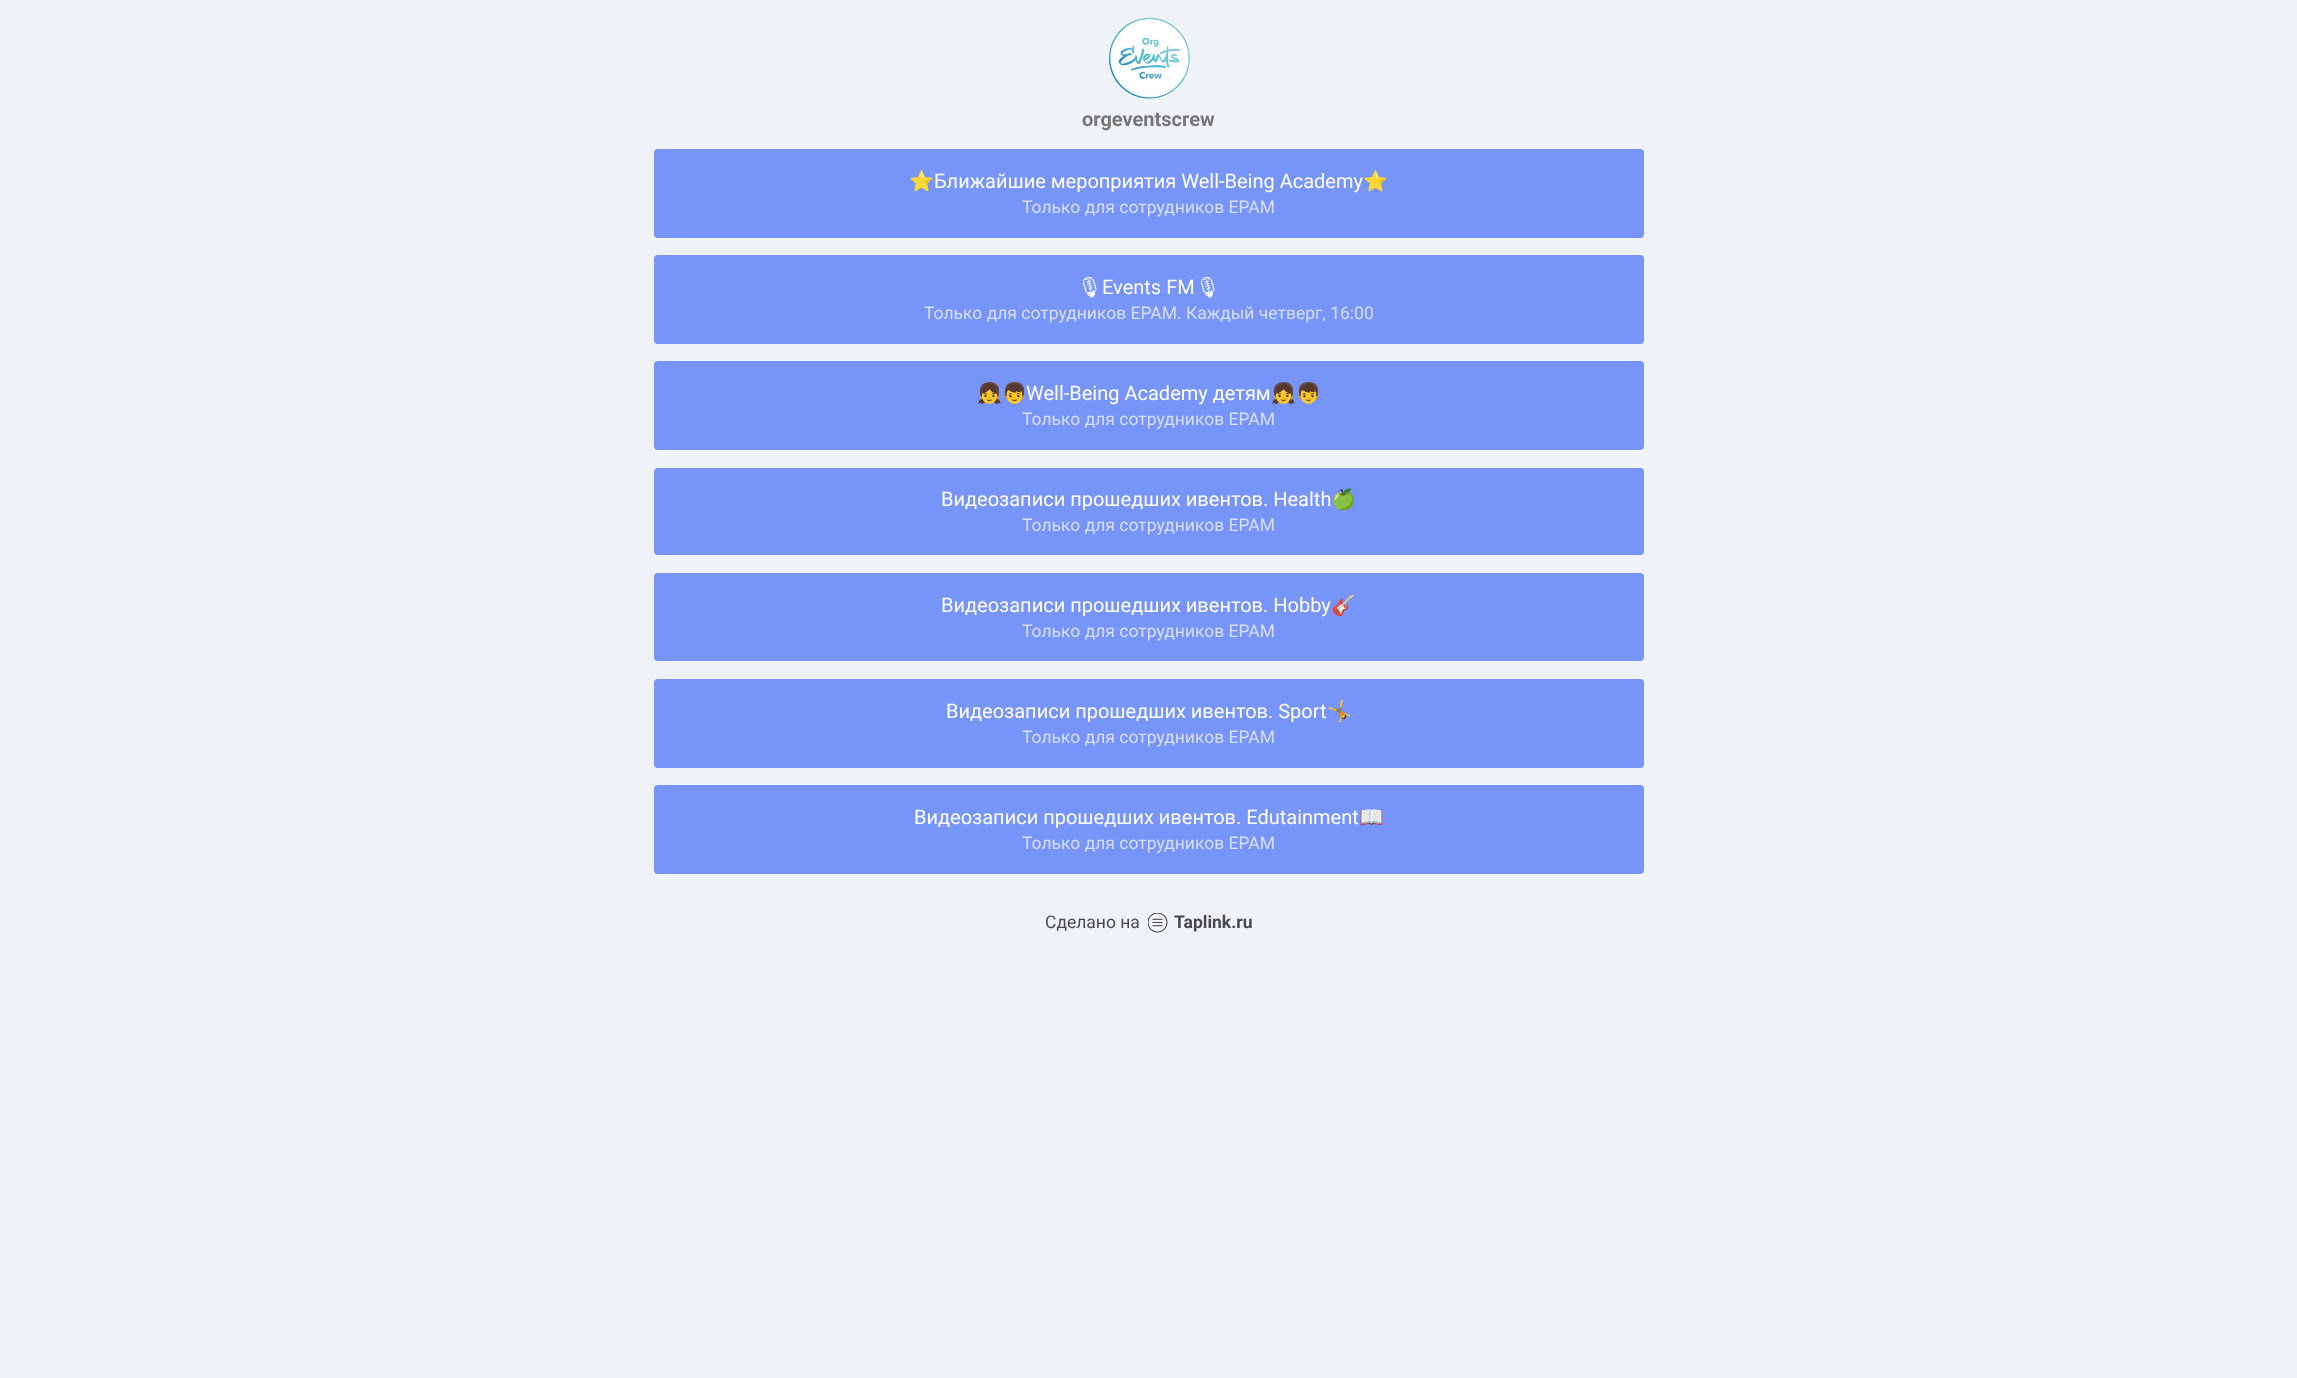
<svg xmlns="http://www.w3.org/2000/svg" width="2297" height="1378">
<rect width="100%" height="100%" fill="#eff2f7"/>
<image x="1108" y="17" width="82" height="82" href="media/1.png"/>
<text x="1082" y="126" style="font-family:Roboto;font-size:20px;font-weight:bold;fill:#777">orgeventscrew</text>
<rect x="655.5" y="150.5" width="987" height="86" rx="2.5" fill="#7795f8" stroke="#7795f8" stroke-width="3"/>
<text x="909" y="188" style="font-family:Noto Color Emoji;font-size:20px;fill:#fff">⭐</text>
<text x="934" y="188" style="font-family:Roboto;font-size:20px;fill:#fff">Ближайшие мероприятия Well-Being Academy</text>
<text x="1363" y="188" style="font-family:Noto Color Emoji;font-size:20px;fill:#fff">⭐</text>
<text x="1022" y="213" style="font-family:Roboto;font-size:17.5px;fill:#d6dffd">Только для сотрудников EPAM</text>
<rect x="655.5" y="256.5" width="987" height="86" rx="2.5" fill="#7795f8" stroke="#7795f8" stroke-width="3"/>
<text x="1077" y="294" style="font-family:Noto Emoji;font-size:20px;fill:#fff">🎙</text>
<text x="1102" y="294" style="font-family:Roboto;font-size:20px;fill:#fff">Events FM</text>
<text x="1195" y="294" style="font-family:Noto Emoji;font-size:20px;fill:#fff">🎙</text>
<text x="924" y="319" style="font-family:Roboto;font-size:17.5px;fill:#d6dffd">Только для сотрудников EPAM. Каждый четверг, 16:00</text>
<rect x="655.5" y="362.5" width="987" height="86" rx="2.5" fill="#7795f8" stroke="#7795f8" stroke-width="3"/>
<text x="977" y="400" style="font-family:Noto Color Emoji;font-size:20px;fill:#fff">👧👦</text>
<text x="1026" y="400" style="font-family:Roboto;font-size:20px;fill:#fff">Well-Being Academy детям</text>
<text x="1271" y="400" style="font-family:Noto Color Emoji;font-size:20px;fill:#fff">👧👦</text>
<text x="1022" y="425" style="font-family:Roboto;font-size:17.5px;fill:#d6dffd">Только для сотрудников EPAM</text>
<rect x="655.5" y="469.5" width="987" height="84" rx="2.5" fill="#7795f8" stroke="#7795f8" stroke-width="3"/>
<text x="941" y="506" style="font-family:Roboto;font-size:20px;fill:#fff">Видеозаписи прошедших ивентов. Health</text>
<text x="1331" y="506" style="font-family:Noto Color Emoji;font-size:20px;fill:#fff">🍏</text>
<text x="1022" y="531" style="font-family:Roboto;font-size:17.5px;fill:#d6dffd">Только для сотрудников EPAM</text>
<rect x="655.5" y="574.5" width="987" height="85" rx="2.5" fill="#7795f8" stroke="#7795f8" stroke-width="3"/>
<text x="941" y="612" style="font-family:Roboto;font-size:20px;fill:#fff">Видеозаписи прошедших ивентов. Hobby</text>
<text x="1331" y="612" style="font-family:Noto Color Emoji;font-size:20px;fill:#fff">🎸</text>
<text x="1022" y="637" style="font-family:Roboto;font-size:17.5px;fill:#d6dffd">Только для сотрудников EPAM</text>
<rect x="655.5" y="680.5" width="987" height="86" rx="2.5" fill="#7795f8" stroke="#7795f8" stroke-width="3"/>
<text x="946" y="718" style="font-family:Roboto;font-size:20px;fill:#fff">Видеозаписи прошедших ивентов. Sport</text>
<text x="1327" y="718" style="font-family:Noto Color Emoji;font-size:20px;fill:#fff">🤸</text>
<text x="1022" y="743" style="font-family:Roboto;font-size:17.5px;fill:#d6dffd">Только для сотрудников EPAM</text>
<rect x="655.5" y="786.5" width="987" height="86" rx="2.5" fill="#7795f8" stroke="#7795f8" stroke-width="3"/>
<text x="914" y="824" style="font-family:Roboto;font-size:20px;fill:#fff">Видеозаписи прошедших ивентов. Edutainment</text>
<text x="1359" y="824" style="font-family:Noto Color Emoji;font-size:20px;fill:#fff">📖</text>
<text x="1022" y="849" style="font-family:Roboto;font-size:17.5px;fill:#d6dffd">Только для сотрудников EPAM</text>
<text x="1045" y="928" style="font-family:Roboto;font-size:17.5px;fill:#48494a">Сделано на</text>
<image x="1148" y="913" width="20" height="20" href="media/2.png"/>
<text x="1174" y="928" style="font-family:Roboto;font-size:17.5px;font-weight:bold;fill:#48494a">Taplink.ru</text>
</svg>
